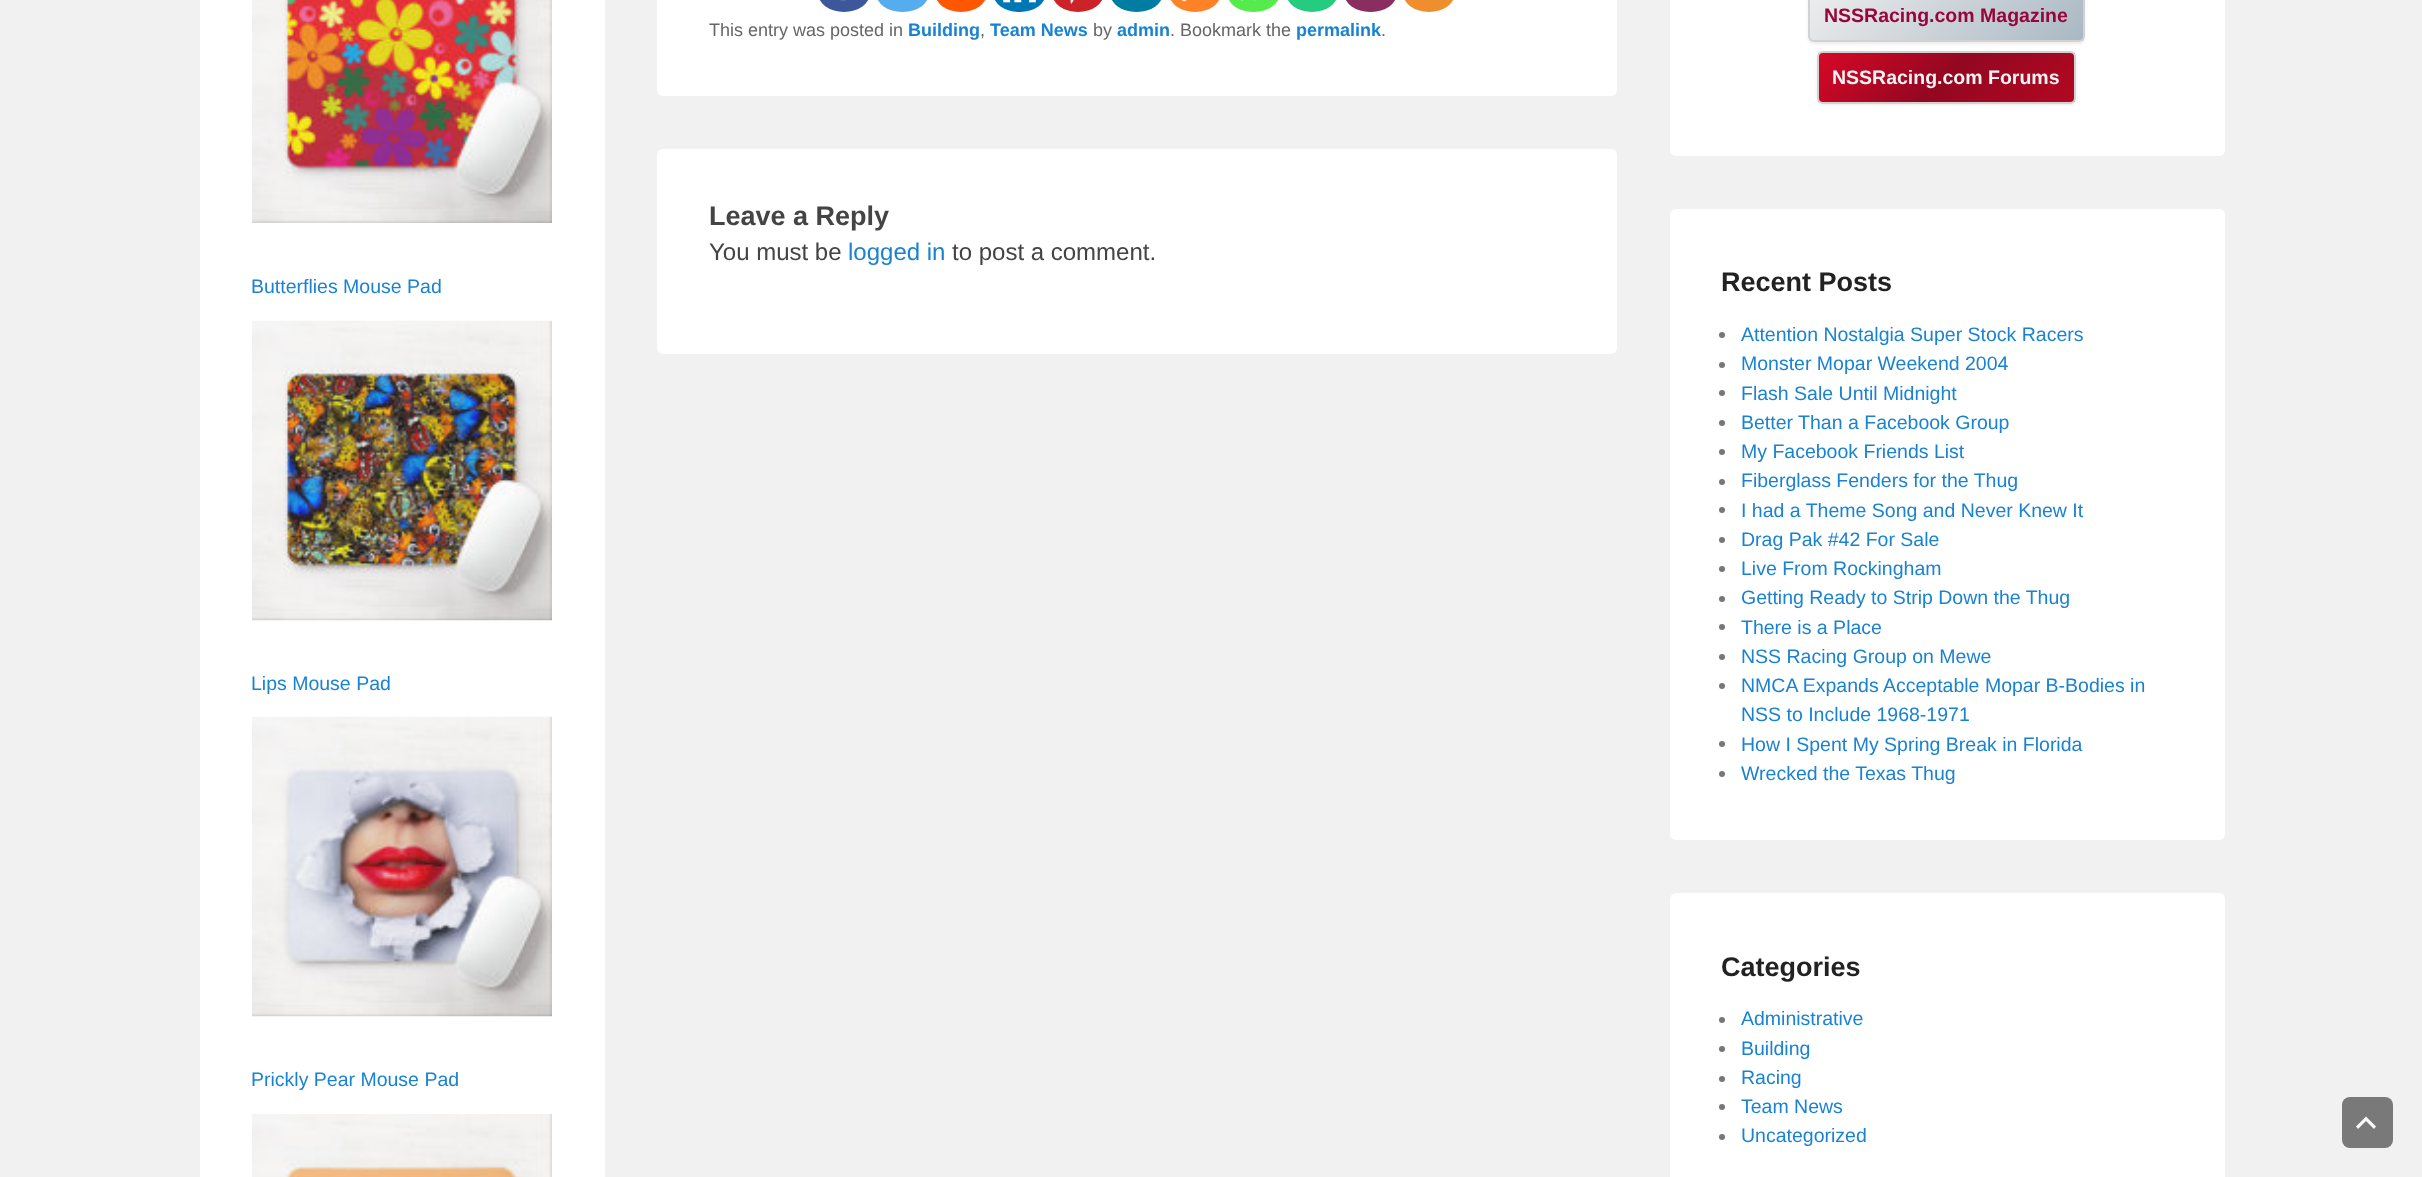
<svg xmlns="http://www.w3.org/2000/svg" width="2422" height="1177">
<defs>
<clipPath id="clip1"><rect x="1808" y="-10" width="277" height="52" rx="6"/></clipPath>
<linearGradient id="g1" gradientUnits="userSpaceOnUse" x1="1865" y1="-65" x2="2027" y2="97"><stop offset="0" stop-color="#eee"/><stop offset="1" stop-color="#a9b8c3"/></linearGradient>
<clipPath id="clip2"><rect x="1817" y="51" width="259" height="53" rx="6"/></clipPath>
<linearGradient id="g2" gradientUnits="userSpaceOnUse" x1="1870" y1="0.8" x2="2023" y2="154"><stop offset="0" stop-color="#d70827"/><stop offset="0.5" stop-color="#930721"/><stop offset="1" stop-color="#b30821"/></linearGradient>
</defs>
<rect width="100%" height="100%" fill="#f1f1f1"/>
<rect x="200" width="405" height="1177" fill="#fff"/>
<image x="252" y="0" width="300" height="223" href="media/1.png"/>
<text x="251" y="293" style="font-family:Liberation Sans;font-size:19.5px;fill:#1982d1">Butterflies Mouse Pad</text>
<image x="252" y="320" width="300" height="301" href="media/2.png"/>
<text x="251" y="690" style="font-family:Liberation Sans;font-size:19.5px;fill:#1982d1">Lips Mouse Pad</text>
<image x="252" y="716" width="300" height="301" href="media/3.png"/>
<text x="251" y="1086" style="font-family:Liberation Sans;font-size:19.5px;fill:#1982d1">Prickly Pear Mouse Pad</text>
<image x="252" y="1114" width="300" height="63" href="media/4.png"/>
<rect x="657" y="-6" width="960" height="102" rx="6" fill="#fff"/>
<rect x="818" y="-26" width="52" height="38" rx="26" fill="#3c589a"/>
<image x="840" y="0" width="6" height="1" href="media/5.png"/>
<rect x="876" y="-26" width="53" height="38" rx="26" fill="#55acee"/>
<rect x="935" y="-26" width="52" height="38" rx="26" fill="#ff5700"/>
<rect x="993" y="-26" width="53" height="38" rx="26" fill="#0077b5"/>
<image x="1003" y="0" width="33" height="3" href="media/6.png"/>
<rect x="1052" y="-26" width="52" height="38" rx="26" fill="#cc2329"/>
<image x="1070" y="0" width="4" height="4" href="media/7.png"/>
<rect x="1110" y="-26" width="53" height="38" rx="26" fill="#007da1"/>
<rect x="1169" y="-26" width="52" height="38" rx="26" fill="#ff8226"/>
<image x="1181" y="0" width="6" height="2" href="media/8.png"/>
<rect x="1227" y="-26" width="53" height="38" rx="26" fill="#55eb4c"/>
<image x="1241" y="0" width="15" height="1" href="media/9.png"/>
<rect x="1286" y="-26" width="52" height="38" rx="26" fill="#25cc80"/>
<rect x="1344" y="-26" width="53" height="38" rx="26" fill="#892e5e"/>
<rect x="1403" y="-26" width="52" height="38" rx="26" fill="#ee8e2d"/>
<text x="709" y="36" style="font-family:Liberation Sans;font-size:18px;fill:#666">This entry was posted in</text>
<text x="908" y="36" style="font-family:Liberation Sans;font-size:18px;font-weight:bold;fill:#1982d1">Building</text>
<text x="980" y="36" style="font-family:Liberation Sans;font-size:18px;fill:#666">,</text>
<text x="990" y="36" style="font-family:Liberation Sans;font-size:18px;font-weight:bold;fill:#1982d1">Team News</text>
<text x="1093" y="36" style="font-family:Liberation Sans;font-size:18px;fill:#666">by</text>
<text x="1117" y="36" style="font-family:Liberation Sans;font-size:18px;font-weight:bold;fill:#1982d1">admin</text>
<text x="1170" y="36" style="font-family:Liberation Sans;font-size:18px;fill:#666">. Bookmark the</text>
<text x="1296" y="36" style="font-family:Liberation Sans;font-size:18px;font-weight:bold;fill:#1982d1">permalink</text>
<text x="1381" y="36" style="font-family:Liberation Sans;font-size:18px;fill:#666">.</text>
<rect x="657" y="149" width="960" height="205" rx="6" fill="#fff"/>
<text x="709" y="225" style="font-family:Liberation Sans;font-size:27px;font-weight:bold;fill:#444">Leave a Reply</text>
<text x="709" y="260" style="font-family:Liberation Sans;font-size:24px;fill:#444">You must be</text>
<text x="848" y="260" style="font-family:Liberation Sans;font-size:24px;fill:#1982d1">logged in</text>
<text x="952" y="260" style="font-family:Liberation Sans;font-size:24px;fill:#444">to post a comment.</text>
<rect x="1670" y="-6" width="555" height="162" rx="6" fill="#fff"/>
<rect x="1808" y="-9" width="277" height="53" rx="6" fill="#4040401a" filter="blur(1.5px)"/>
<g clip-path="url(#clip1)">
<rect x="1809" width="275" height="41" fill="url(#g1)"/>
</g>
<rect x="1809" y="-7" width="275" height="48" rx="5" fill="none" stroke="#d2d2d2" stroke-width="2"/>
<text x="1824" y="22" style="font-family:Liberation Sans;font-size:19.5px;font-weight:bold;fill:#99053b">NSSRacing.com Magazine</text>
<rect x="1817" y="53" width="259" height="52" rx="6" fill="#4040401a" filter="blur(1.5px)"/>
<g clip-path="url(#clip2)">
<rect x="1818" y="53" width="257" height="49" fill="url(#g2)"/>
</g>
<rect x="1818" y="52" width="257" height="51" rx="5" fill="none" stroke="#d2d2d2" stroke-width="2"/>
<text x="1832" y="84" style="font-family:Liberation Sans;font-size:19.5px;font-weight:bold;fill:#f4f4f4">NSSRacing.com Forums</text>
<rect x="1670" y="209" width="555" height="631" rx="6" fill="#fff"/>
<text x="1721" y="291" style="font-family:Liberation Sans;font-size:27px;font-weight:bold;fill:#222">Recent Posts</text>
<circle cx="1722" cy="335" r="3" fill="#777"/>
<text x="1741" y="341" style="font-family:Liberation Sans;font-size:19.5px;fill:#1982d1">Attention Nostalgia Super Stock Racers</text>
<circle cx="1722" cy="365" r="3" fill="#777"/>
<text x="1741" y="370" style="font-family:Liberation Sans;font-size:19.5px;fill:#1982d1">Monster Mopar Weekend 2004</text>
<circle cx="1722" cy="393" r="3" fill="#777"/>
<text x="1741" y="400" style="font-family:Liberation Sans;font-size:19.5px;fill:#1982d1">Flash Sale Until Midnight</text>
<circle cx="1722" cy="423" r="3" fill="#777"/>
<text x="1741" y="429" style="font-family:Liberation Sans;font-size:19.5px;fill:#1982d1">Better Than a Facebook Group</text>
<circle cx="1722" cy="452" r="3" fill="#777"/>
<text x="1741" y="458" style="font-family:Liberation Sans;font-size:19.5px;fill:#1982d1">My Facebook Friends List</text>
<circle cx="1722" cy="482" r="3" fill="#777"/>
<text x="1741" y="487" style="font-family:Liberation Sans;font-size:19.5px;fill:#1982d1">Fiberglass Fenders for the Thug</text>
<circle cx="1722" cy="510" r="3" fill="#777"/>
<text x="1741" y="517" style="font-family:Liberation Sans;font-size:19.5px;fill:#1982d1">I had a Theme Song and Never Knew It</text>
<circle cx="1722" cy="540" r="3" fill="#777"/>
<text x="1741" y="546" style="font-family:Liberation Sans;font-size:19.5px;fill:#1982d1">Drag Pak #42 For Sale</text>
<circle cx="1722" cy="569" r="3" fill="#777"/>
<text x="1741" y="575" style="font-family:Liberation Sans;font-size:19.5px;fill:#1982d1">Live From Rockingham</text>
<circle cx="1722" cy="599" r="3" fill="#777"/>
<text x="1741" y="604" style="font-family:Liberation Sans;font-size:19.5px;fill:#1982d1">Getting Ready to Strip Down the Thug</text>
<circle cx="1722" cy="627" r="3" fill="#777"/>
<text x="1741" y="634" style="font-family:Liberation Sans;font-size:19.5px;fill:#1982d1">There is a Place</text>
<circle cx="1722" cy="657" r="3" fill="#777"/>
<text x="1741" y="663" style="font-family:Liberation Sans;font-size:19.5px;fill:#1982d1">NSS Racing Group on Mewe</text>
<circle cx="1722" cy="686" r="3" fill="#777"/>
<text x="1741" y="692" style="font-family:Liberation Sans;font-size:19.5px;fill:#1982d1">NMCA Expands Acceptable Mopar B-Bodies in</text>
<text x="1741" y="721" style="font-family:Liberation Sans;font-size:19.5px;fill:#1982d1">NSS to Include 1968-1971</text>
<circle cx="1722" cy="744" r="3" fill="#777"/>
<text x="1741" y="751" style="font-family:Liberation Sans;font-size:19.5px;fill:#1982d1">How I Spent My Spring Break in Florida</text>
<circle cx="1722" cy="774" r="3" fill="#777"/>
<text x="1741" y="780" style="font-family:Liberation Sans;font-size:19.5px;fill:#1982d1">Wrecked the Texas Thug</text>
<rect x="1670" y="893" width="555" height="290" rx="6" fill="#fff"/>
<text x="1721" y="976" style="font-family:Liberation Sans;font-size:27px;font-weight:bold;fill:#222">Categories</text>
<circle cx="1722" cy="1020" r="3" fill="#777"/>
<text x="1741" y="1025" style="font-family:Liberation Sans;font-size:19.5px;fill:#1982d1">Administrative</text>
<circle cx="1722" cy="1049" r="3" fill="#777"/>
<text x="1741" y="1055" style="font-family:Liberation Sans;font-size:19.5px;fill:#1982d1">Building</text>
<circle cx="1722" cy="1079" r="3" fill="#777"/>
<text x="1741" y="1084" style="font-family:Liberation Sans;font-size:19.5px;fill:#1982d1">Racing</text>
<circle cx="1722" cy="1107" r="3" fill="#777"/>
<text x="1741" y="1113" style="font-family:Liberation Sans;font-size:19.5px;fill:#1982d1">Team News</text>
<circle cx="1722" cy="1137" r="3" fill="#777"/>
<text x="1741" y="1142" style="font-family:Liberation Sans;font-size:19.5px;fill:#1982d1">Uncategorized</text>
<rect x="2342" y="1097" width="51" height="51" rx="8" fill="#797979"/>
<path d="M2374 1129l-8-8l-8 8l-2-2.5l10-10l10 10z" fill="#f8f8f8"/>
</svg>
